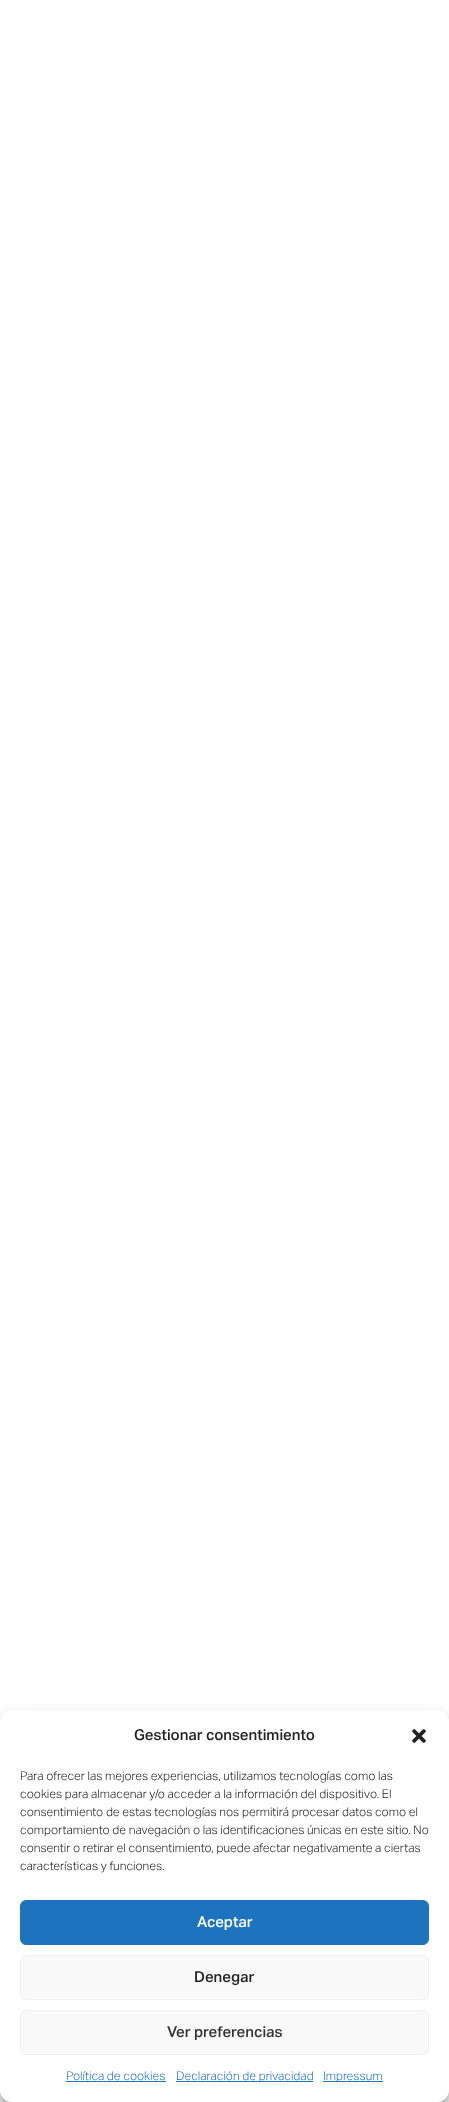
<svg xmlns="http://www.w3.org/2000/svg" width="449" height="2102">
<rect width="100%" height="100%" fill="#fff"/>
<rect y="1716" width="449" height="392" rx="12" fill="#0000003b" filter="blur(3px)"/>
<rect y="1720" width="449" height="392" rx="12" fill="#00000030" filter="blur(10px)"/>
<rect y="1710" width="449" height="392" rx="12" fill="#fff"/>
<text x="134" y="1740" style="font-family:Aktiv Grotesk;font-size:15px;font-weight:500;fill:#222">Gestionar consentimiento</text>
<image x="412" y="1729" width="14" height="14" href="media/1.png"/>
<text x="20" y="1780" style="font-family:Aktiv Grotesk;font-size:12px;font-weight:300;fill:#222">Para ofrecer las mejores experiencias, utilizamos tecnologías como las</text>
<text x="20" y="1798" style="font-family:Aktiv Grotesk;font-size:12px;font-weight:300;fill:#222">cookies para almacenar y/o acceder a la información del dispositivo. El</text>
<text x="20" y="1816" style="font-family:Aktiv Grotesk;font-size:12px;font-weight:300;fill:#222">consentimiento de estas tecnologías nos permitirá procesar datos como el</text>
<text x="20" y="1834" style="font-family:Aktiv Grotesk;font-size:12px;font-weight:300;fill:#222">comportamiento de navegación o las identificaciones únicas en este sitio. No</text>
<text x="20" y="1852" style="font-family:Aktiv Grotesk;font-size:12px;font-weight:300;fill:#222">consentir o retirar el consentimiento, puede afectar negativamente a ciertas</text>
<text x="20" y="1870" style="font-family:Aktiv Grotesk;font-size:12px;font-weight:300;fill:#222">características y funciones.</text>
<rect x="20.5" y="1900.5" width="408" height="44" rx="5.5" fill="#1e73be" stroke="#1e73be"/>
<text x="197" y="1927" style="font-family:Aktiv Grotesk;font-size:15px;font-weight:500;fill:#fff">Aceptar</text>
<rect x="20.5" y="1955.5" width="408" height="44" rx="5.5" fill="#f9f9f9" stroke="#f2f2f2"/>
<text x="194" y="1982" style="font-family:Aktiv Grotesk;font-size:15px;font-weight:500;fill:#222">Denegar</text>
<rect x="20.5" y="2010.5" width="408" height="44" rx="5.5" fill="#f9f9f9" stroke="#f2f2f2"/>
<text x="167" y="2037" style="font-family:Aktiv Grotesk;font-size:15px;font-weight:500;fill:#333">Ver preferencias</text>
<text x="66" y="2080" style="font-family:Aktiv Grotesk;font-size:12px;font-weight:300;fill:#1e73be">Política de cookies</text>
<rect x="66" y="2081" width="100" height="1" fill="#1e73be"/>
<rect x="176" y="2081" width="137" height="1" fill="#1e73be"/>
<text x="176" y="2080" style="font-family:Aktiv Grotesk;font-size:12px;font-weight:300;fill:#1e73be">Declaración de privacidad</text>
<rect x="323" y="2081" width="60" height="1" fill="#1e73be"/>
<text x="323" y="2080" style="font-family:Aktiv Grotesk;font-size:12px;font-weight:300;fill:#1e73be">Impressum</text>
</svg>
